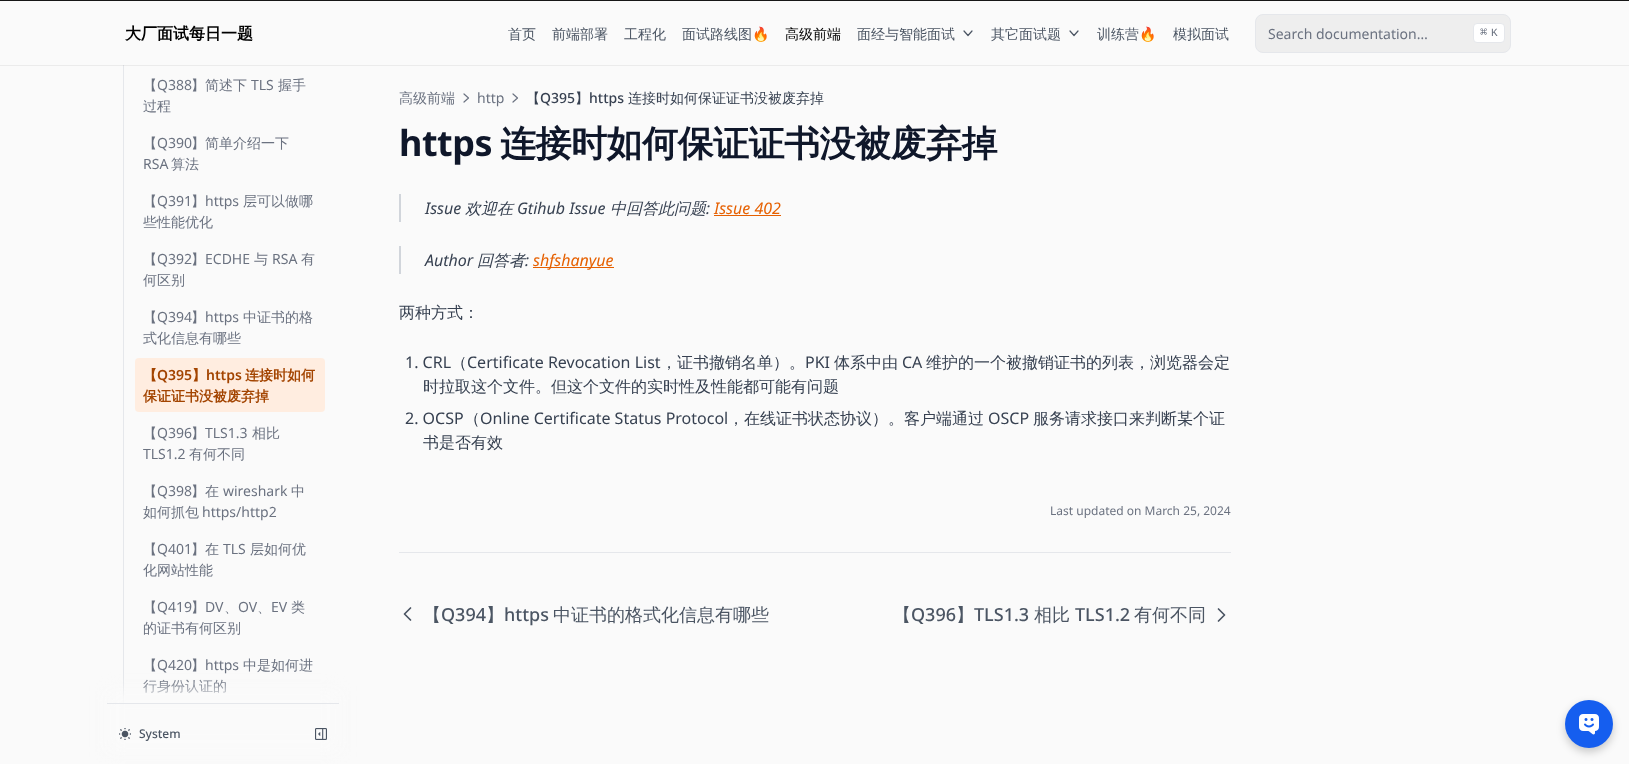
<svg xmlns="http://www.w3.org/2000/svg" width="1629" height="764">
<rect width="100%" height="100%" fill="#fafafa"/>
<rect y="65" width="1629" height="1" fill="#ebebeb"/>
<rect width="1629" height="1" fill="#171717"/>
<text x="125" y="39" style="font-family:WenQuanYi Zen Hei;font-size:16px;font-weight:bold;fill:#000">大厂面试每日一题</text>
<text x="508" y="39" style="font-family:WenQuanYi Zen Hei;font-size:14px;font-weight:500;fill:#4b5563">首页</text>
<text x="552" y="39" style="font-family:WenQuanYi Zen Hei;font-size:14px;font-weight:500;fill:#4b5563">前端部署</text>
<text x="624" y="39" style="font-family:WenQuanYi Zen Hei;font-size:14px;font-weight:500;fill:#4b5563">工程化</text>
<text x="682" y="39" style="font-family:WenQuanYi Zen Hei;font-size:14px;font-weight:500;fill:#4b5563">面试路线图</text>
<text x="752" y="39" style="font-family:Noto Color Emoji;font-size:14px;fill:#4b5563">🔥</text>
<text x="785" y="39" style="font-family:WenQuanYi Zen Hei;font-size:14px;font-weight:500;fill:#000">高级前端</text>
<text x="857" y="39" style="font-family:WenQuanYi Zen Hei;font-size:14px;font-weight:500;fill:#4b5563">面经与智能面试</text>
<path d="M972 31l-4 4.5l-4-4.5" fill="none" stroke="#4b5563" stroke-width="1.2" stroke-linecap="round" stroke-linejoin="round"/>
<text x="991" y="39" style="font-family:WenQuanYi Zen Hei;font-size:14px;font-weight:500;fill:#4b5563">其它面试题</text>
<path d="M1078 31l-4 4.5l-4-4.5" fill="none" stroke="#4b5563" stroke-width="1.2" stroke-linecap="round" stroke-linejoin="round"/>
<text x="1097" y="39" style="font-family:WenQuanYi Zen Hei;font-size:14px;font-weight:500;fill:#4b5563">训练营</text>
<text x="1139" y="39" style="font-family:Noto Color Emoji;font-size:14px;fill:#4b5563">🔥</text>
<text x="1173" y="39" style="font-family:WenQuanYi Zen Hei;font-size:14px;font-weight:500;fill:#4b5563">模拟面试</text>
<rect x="1255.5" y="14.5" width="255" height="38" rx="7.5" fill="#eee" stroke="#e5e7eb"/>
<text x="1268" y="39" style="font-family:Noto Sans;font-size:14px;fill:#6b7280">Search documentation…</text>
<rect x="1473.5" y="23.5" width="31" height="19" rx="3.5" fill="#fff" stroke="#e5e7eb"/>
<text x="1480" y="36" style="font-family:DejaVu Sans Mono;font-size:12px;fill:#6b7280">⌘</text>
<text x="1491" y="36" style="font-family:Liberation Mono;font-size:11px;fill:#6b7280">K</text>
<rect x="123" y="65" width="1" height="640" fill="#e5e7eb"/>
<rect x="123" y="65" width="1" height="1" fill="#d7d9dd"/>
<text x="143" y="90" style="font-family:WenQuanYi Zen Hei;font-size:14px;font-weight:500;fill:#6b7280">【</text>
<text x="157" y="90" style="font-family:Noto Sans;font-size:14px;fill:#6b7280">Q388</text>
<text x="191" y="90" style="font-family:WenQuanYi Zen Hei;font-size:14px;font-weight:500;fill:#6b7280">】简述下</text>
<text x="251" y="90" style="font-family:Noto Sans;font-size:14px;fill:#6b7280">TLS</text>
<text x="278" y="90" style="font-family:WenQuanYi Zen Hei;font-size:14px;font-weight:500;fill:#6b7280">握手</text>
<text x="143" y="111" style="font-family:WenQuanYi Zen Hei;font-size:14px;font-weight:500;fill:#6b7280">过程</text>
<text x="143" y="148" style="font-family:WenQuanYi Zen Hei;font-size:14px;font-weight:500;fill:#6b7280">【</text>
<text x="157" y="148" style="font-family:Noto Sans;font-size:14px;fill:#6b7280">Q390</text>
<text x="191" y="148" style="font-family:WenQuanYi Zen Hei;font-size:14px;font-weight:500;fill:#6b7280">】简单介绍一下</text>
<text x="143" y="169" style="font-family:Noto Sans;font-size:14px;fill:#6b7280">RSA</text>
<text x="171" y="169" style="font-family:WenQuanYi Zen Hei;font-size:14px;font-weight:500;fill:#6b7280">算法</text>
<text x="143" y="206" style="font-family:WenQuanYi Zen Hei;font-size:14px;font-weight:500;fill:#6b7280">【</text>
<text x="157" y="206" style="font-family:Noto Sans;font-size:14px;fill:#6b7280">Q391</text>
<text x="191" y="206" style="font-family:WenQuanYi Zen Hei;font-size:14px;font-weight:500;fill:#6b7280">】</text>
<text x="205" y="206" style="font-family:Noto Sans;font-size:14px;fill:#6b7280">https</text>
<text x="243" y="206" style="font-family:WenQuanYi Zen Hei;font-size:14px;font-weight:500;fill:#6b7280">层可以做哪</text>
<text x="143" y="227" style="font-family:WenQuanYi Zen Hei;font-size:14px;font-weight:500;fill:#6b7280">些性能优化</text>
<text x="143" y="264" style="font-family:WenQuanYi Zen Hei;font-size:14px;font-weight:500;fill:#6b7280">【</text>
<text x="157" y="264" style="font-family:Noto Sans;font-size:14px;fill:#6b7280">Q392</text>
<text x="191" y="264" style="font-family:WenQuanYi Zen Hei;font-size:14px;font-weight:500;fill:#6b7280">】</text>
<text x="205" y="264" style="font-family:Noto Sans;font-size:14px;fill:#6b7280">ECDHE</text>
<text x="254" y="264" style="font-family:WenQuanYi Zen Hei;font-size:14px;font-weight:500;fill:#6b7280">与</text>
<text x="272" y="264" style="font-family:Noto Sans;font-size:14px;fill:#6b7280">RSA</text>
<text x="301" y="264" style="font-family:WenQuanYi Zen Hei;font-size:14px;font-weight:500;fill:#6b7280">有</text>
<text x="143" y="285" style="font-family:WenQuanYi Zen Hei;font-size:14px;font-weight:500;fill:#6b7280">何区别</text>
<text x="143" y="322" style="font-family:WenQuanYi Zen Hei;font-size:14px;font-weight:500;fill:#6b7280">【</text>
<text x="157" y="322" style="font-family:Noto Sans;font-size:14px;fill:#6b7280">Q394</text>
<text x="191" y="322" style="font-family:WenQuanYi Zen Hei;font-size:14px;font-weight:500;fill:#6b7280">】</text>
<text x="205" y="322" style="font-family:Noto Sans;font-size:14px;fill:#6b7280">https</text>
<text x="243" y="322" style="font-family:WenQuanYi Zen Hei;font-size:14px;font-weight:500;fill:#6b7280">中证书的格</text>
<text x="143" y="343" style="font-family:WenQuanYi Zen Hei;font-size:14px;font-weight:500;fill:#6b7280">式化信息有哪些</text>
<rect x="135" y="358" width="190" height="54" rx="4" fill="#ffede0"/>
<text x="143" y="380" style="font-family:WenQuanYi Zen Hei;font-size:14px;font-weight:bold;fill:#a34400">【</text>
<text x="157" y="380" style="font-family:Noto Sans;font-size:14px;font-weight:600;fill:#a34400">Q395</text>
<text x="192" y="380" style="font-family:WenQuanYi Zen Hei;font-size:14px;font-weight:bold;fill:#a34400">】</text>
<text x="206" y="380" style="font-family:Noto Sans;font-size:14px;font-weight:600;fill:#a34400">https</text>
<text x="245" y="380" style="font-family:WenQuanYi Zen Hei;font-size:14px;font-weight:bold;fill:#a34400">连接时如何</text>
<text x="143" y="401" style="font-family:WenQuanYi Zen Hei;font-size:14px;font-weight:bold;fill:#a34400">保证证书没被废弃掉</text>
<text x="143" y="438" style="font-family:WenQuanYi Zen Hei;font-size:14px;font-weight:500;fill:#6b7280">【</text>
<text x="157" y="438" style="font-family:Noto Sans;font-size:14px;fill:#6b7280">Q396</text>
<text x="191" y="438" style="font-family:WenQuanYi Zen Hei;font-size:14px;font-weight:500;fill:#6b7280">】</text>
<text x="205" y="438" style="font-family:Noto Sans;font-size:14px;fill:#6b7280">TLS1.3</text>
<text x="252" y="438" style="font-family:WenQuanYi Zen Hei;font-size:14px;font-weight:500;fill:#6b7280">相比</text>
<text x="143" y="459" style="font-family:Noto Sans;font-size:14px;fill:#6b7280">TLS1.2</text>
<text x="189" y="459" style="font-family:WenQuanYi Zen Hei;font-size:14px;font-weight:500;fill:#6b7280">有何不同</text>
<text x="143" y="496" style="font-family:WenQuanYi Zen Hei;font-size:14px;font-weight:500;fill:#6b7280">【</text>
<text x="157" y="496" style="font-family:Noto Sans;font-size:14px;fill:#6b7280">Q398</text>
<text x="191" y="496" style="font-family:WenQuanYi Zen Hei;font-size:14px;font-weight:500;fill:#6b7280">】在</text>
<text x="223" y="496" style="font-family:Noto Sans;font-size:14px;fill:#6b7280">wireshark</text>
<text x="291" y="496" style="font-family:WenQuanYi Zen Hei;font-size:14px;font-weight:500;fill:#6b7280">中</text>
<text x="143" y="517" style="font-family:WenQuanYi Zen Hei;font-size:14px;font-weight:500;fill:#6b7280">如何抓包</text>
<text x="202" y="517" style="font-family:Noto Sans;font-size:14px;fill:#6b7280">https/http2</text>
<text x="143" y="554" style="font-family:WenQuanYi Zen Hei;font-size:14px;font-weight:500;fill:#6b7280">【</text>
<text x="157" y="554" style="font-family:Noto Sans;font-size:14px;fill:#6b7280">Q401</text>
<text x="191" y="554" style="font-family:WenQuanYi Zen Hei;font-size:14px;font-weight:500;fill:#6b7280">】在</text>
<text x="223" y="554" style="font-family:Noto Sans;font-size:14px;fill:#6b7280">TLS</text>
<text x="250" y="554" style="font-family:WenQuanYi Zen Hei;font-size:14px;font-weight:500;fill:#6b7280">层如何优</text>
<text x="143" y="575" style="font-family:WenQuanYi Zen Hei;font-size:14px;font-weight:500;fill:#6b7280">化网站性能</text>
<text x="143" y="612" style="font-family:WenQuanYi Zen Hei;font-size:14px;font-weight:500;fill:#6b7280">【</text>
<text x="157" y="612" style="font-family:Noto Sans;font-size:14px;fill:#6b7280">Q419</text>
<text x="191" y="612" style="font-family:WenQuanYi Zen Hei;font-size:14px;font-weight:500;fill:#6b7280">】</text>
<text x="205" y="612" style="font-family:Noto Sans;font-size:14px;fill:#6b7280">DV</text>
<text x="224" y="612" style="font-family:WenQuanYi Zen Hei;font-size:14px;font-weight:500;fill:#6b7280">、</text>
<text x="238" y="612" style="font-family:Noto Sans;font-size:14px;fill:#6b7280">OV</text>
<text x="257" y="612" style="font-family:WenQuanYi Zen Hei;font-size:14px;font-weight:500;fill:#6b7280">、</text>
<text x="271" y="612" style="font-family:Noto Sans;font-size:14px;fill:#6b7280">EV</text>
<text x="291" y="612" style="font-family:WenQuanYi Zen Hei;font-size:14px;font-weight:500;fill:#6b7280">类</text>
<text x="143" y="633" style="font-family:WenQuanYi Zen Hei;font-size:14px;font-weight:500;fill:#6b7280">的证书有何区别</text>
<text x="143" y="670" style="font-family:WenQuanYi Zen Hei;font-size:14px;font-weight:500;fill:#6b7280">【</text>
<text x="157" y="670" style="font-family:Noto Sans;font-size:14px;fill:#6b7280">Q420</text>
<text x="191" y="670" style="font-family:WenQuanYi Zen Hei;font-size:14px;font-weight:500;fill:#6b7280">】</text>
<text x="205" y="670" style="font-family:Noto Sans;font-size:14px;fill:#6b7280">https</text>
<text x="243" y="670" style="font-family:WenQuanYi Zen Hei;font-size:14px;font-weight:500;fill:#6b7280">中是如何进</text>
<text x="143" y="691" style="font-family:WenQuanYi Zen Hei;font-size:14px;font-weight:500;fill:#6b7280">行身份认证的</text>
<rect x="107" y="691" width="232" height="61" fill="#fafafa" filter="blur(8px)"/>
<rect x="107" y="703" width="232" height="1" fill="#e5e7eb"/>
<image x="119" y="728" width="12" height="12" href="media/1.png"/>
<text x="139" y="738" style="font-family:Noto Sans;font-size:12px;font-weight:500;fill:#4b5563">System</text>
<image x="315" y="728" width="12" height="12" href="media/2.png"/>
<text x="399" y="103" style="font-family:WenQuanYi Zen Hei;font-size:14px;font-weight:500;fill:#6b7280">高级前端</text>
<path d="M464 94l4.5 4l-4.5 4" fill="none" stroke="#6b7280" stroke-width="1.2" stroke-linecap="round" stroke-linejoin="round"/>
<text x="477" y="103" style="font-family:Noto Sans;font-size:14px;fill:#6b7280">http</text>
<path d="M513 94l4.5 4l-4.5 4" fill="none" stroke="#6b7280" stroke-width="1.2" stroke-linecap="round" stroke-linejoin="round"/>
<text x="526" y="103" style="font-family:WenQuanYi Zen Hei;font-size:14px;font-weight:500;fill:#374151">【</text>
<text x="540" y="103" style="font-family:Noto Sans;font-size:14px;font-weight:500;fill:#374151">Q395</text>
<text x="575" y="103" style="font-family:WenQuanYi Zen Hei;font-size:14px;font-weight:500;fill:#374151">】</text>
<text x="589" y="103" style="font-family:Noto Sans;font-size:14px;font-weight:500;fill:#374151">https</text>
<text x="628" y="103" style="font-family:WenQuanYi Zen Hei;font-size:14px;font-weight:500;fill:#374151">连接时如何保证证书没被废弃掉</text>
<text x="399" y="156" style="font-family:Noto Sans;font-size:36px;font-weight:bold;letter-spacing:-0.5px;fill:#0f172a">https</text>
<text x="500" y="156" style="font-family:WenQuanYi Zen Hei;font-size:36px;font-weight:bold;letter-spacing:-0.5px;fill:#0f172a">连接时如何保证证书没被废弃掉</text>
<rect x="399" y="194" width="2" height="28" fill="#d1d5db"/>
<text x="425" y="214" style="font-family:Noto Sans;font-size:16px;font-style:italic;fill:#374151">Issue</text>
<text x="465" y="214" style="font-family:WenQuanYi Zen Hei;font-size:16px;font-weight:500;font-style:italic;fill:#374151">欢迎在</text>
<text x="517" y="214" style="font-family:Noto Sans;font-size:16px;font-style:italic;fill:#374151">Gtihub Issue</text>
<text x="610" y="214" style="font-family:WenQuanYi Zen Hei;font-size:16px;font-weight:500;font-style:italic;fill:#374151">中回答此问题</text>
<text x="706" y="214" style="font-family:Noto Sans;font-size:16px;font-style:italic;fill:#374151">:</text>
<text x="714" y="214" style="font-family:Noto Sans;font-size:16px;font-style:italic;fill:#e66000">Issue 402</text>
<rect x="714" y="215" width="67" height="1" fill="#e66000"/>
<rect x="399" y="246" width="2" height="28" fill="#d1d5db"/>
<text x="425" y="266" style="font-family:Noto Sans;font-size:16px;font-style:italic;fill:#374151">Author</text>
<text x="477" y="266" style="font-family:WenQuanYi Zen Hei;font-size:16px;font-weight:500;font-style:italic;fill:#374151">回答者</text>
<rect x="533" y="267" width="81" height="1" fill="#e66000"/>
<text x="533" y="266" style="font-family:Noto Sans;font-size:16px;font-style:italic;fill:#e66000">shfshanyue</text>
<text x="525" y="266" style="font-family:Noto Sans;font-size:16px;font-style:italic;fill:#374151">:</text>
<text x="399" y="318" style="font-family:WenQuanYi Zen Hei;font-size:16px;font-weight:500;fill:#374151">两种方式：</text>
<text x="405" y="368" style="font-family:Noto Sans;font-size:16px;fill:#374151">1. CRL</text>
<text x="451" y="368" style="font-family:WenQuanYi Zen Hei;font-size:16px;font-weight:500;fill:#374151">（</text>
<text x="467" y="368" style="font-family:Noto Sans;font-size:16px;fill:#374151">Certificate Revocation List</text>
<text x="661" y="368" style="font-family:WenQuanYi Zen Hei;font-size:16px;font-weight:500;fill:#374151">，证书撤销名单）。</text>
<text x="805" y="368" style="font-family:Noto Sans;font-size:16px;fill:#374151">PKI</text>
<text x="834" y="368" style="font-family:WenQuanYi Zen Hei;font-size:16px;font-weight:500;fill:#374151">体系中由</text>
<text x="902" y="368" style="font-family:Noto Sans;font-size:16px;fill:#374151">CA</text>
<text x="926" y="368" style="font-family:WenQuanYi Zen Hei;font-size:16px;font-weight:500;fill:#374151">维护的一个被撤销证书的列表，浏览器会定</text>
<text x="423" y="392" style="font-family:WenQuanYi Zen Hei;font-size:16px;font-weight:500;fill:#374151">时拉取这个文件。但这个文件的实时性及性能都可能有问题</text>
<text x="405" y="424" style="font-family:Noto Sans;font-size:16px;fill:#374151">2. OCSP</text>
<text x="464" y="424" style="font-family:WenQuanYi Zen Hei;font-size:16px;font-weight:500;fill:#374151">（</text>
<text x="480" y="424" style="font-family:Noto Sans;font-size:16px;fill:#374151">Online Certificate Status Protocol</text>
<text x="728" y="424" style="font-family:WenQuanYi Zen Hei;font-size:16px;font-weight:500;fill:#374151">，在线证书状态协议）。客户端通过</text>
<text x="988" y="424" style="font-family:Noto Sans;font-size:16px;fill:#374151">OSCP</text>
<text x="1033" y="424" style="font-family:WenQuanYi Zen Hei;font-size:16px;font-weight:500;fill:#374151">服务请求接口来判断某个证</text>
<text x="423" y="448" style="font-family:WenQuanYi Zen Hei;font-size:16px;font-weight:500;fill:#374151">书是否有效</text>
<text x="1050" y="515" style="font-family:Noto Sans;font-size:12px;fill:#6b7280">Last updated on March 25, 2024</text>
<rect x="399" y="552" width="832" height="1" fill="#e5e7eb"/>
<path d="M410.5 620l-6-6l6-6" fill="none" stroke="#4b5563" stroke-width="1.7" stroke-linecap="round" stroke-linejoin="round"/>
<text x="423" y="621" style="font-family:WenQuanYi Zen Hei;font-size:18px;font-weight:500;fill:#4b5563">【</text>
<text x="441" y="621" style="font-family:Noto Sans;font-size:18px;font-weight:500;fill:#4b5563">Q394</text>
<text x="486" y="621" style="font-family:WenQuanYi Zen Hei;font-size:18px;font-weight:500;fill:#4b5563">】</text>
<text x="504" y="621" style="font-family:Noto Sans;font-size:18px;font-weight:500;fill:#4b5563">https</text>
<text x="553" y="621" style="font-family:WenQuanYi Zen Hei;font-size:18px;font-weight:500;fill:#4b5563">中证书的格式化信息有哪些</text>
<text x="893" y="621" style="font-family:WenQuanYi Zen Hei;font-size:18px;font-weight:500;fill:#4b5563">【</text>
<text x="911" y="621" style="font-family:Noto Sans;font-size:18px;font-weight:500;fill:#4b5563">Q396</text>
<text x="956" y="621" style="font-family:WenQuanYi Zen Hei;font-size:18px;font-weight:500;fill:#4b5563">】</text>
<text x="974" y="621" style="font-family:Noto Sans;font-size:18px;font-weight:500;fill:#4b5563">TLS1.3</text>
<text x="1034" y="621" style="font-family:WenQuanYi Zen Hei;font-size:18px;font-weight:500;fill:#4b5563">相比</text>
<text x="1075" y="621" style="font-family:Noto Sans;font-size:18px;font-weight:500;fill:#4b5563">TLS1.2</text>
<text x="1134" y="621" style="font-family:WenQuanYi Zen Hei;font-size:18px;font-weight:500;fill:#4b5563">有何不同</text>
<path d="M1218.5 609l6 6l-6 6" fill="none" stroke="#4b5563" stroke-width="1.7" stroke-linecap="round" stroke-linejoin="round"/>
<rect x="1565" y="704" width="48" height="48" rx="24" fill="#00000033" filter="blur(4px)"/>
<circle cx="1589" cy="724" r="24" fill="#155eef"/>
<image x="1579" y="714" width="20" height="21" href="media/3.png"/>
</svg>
